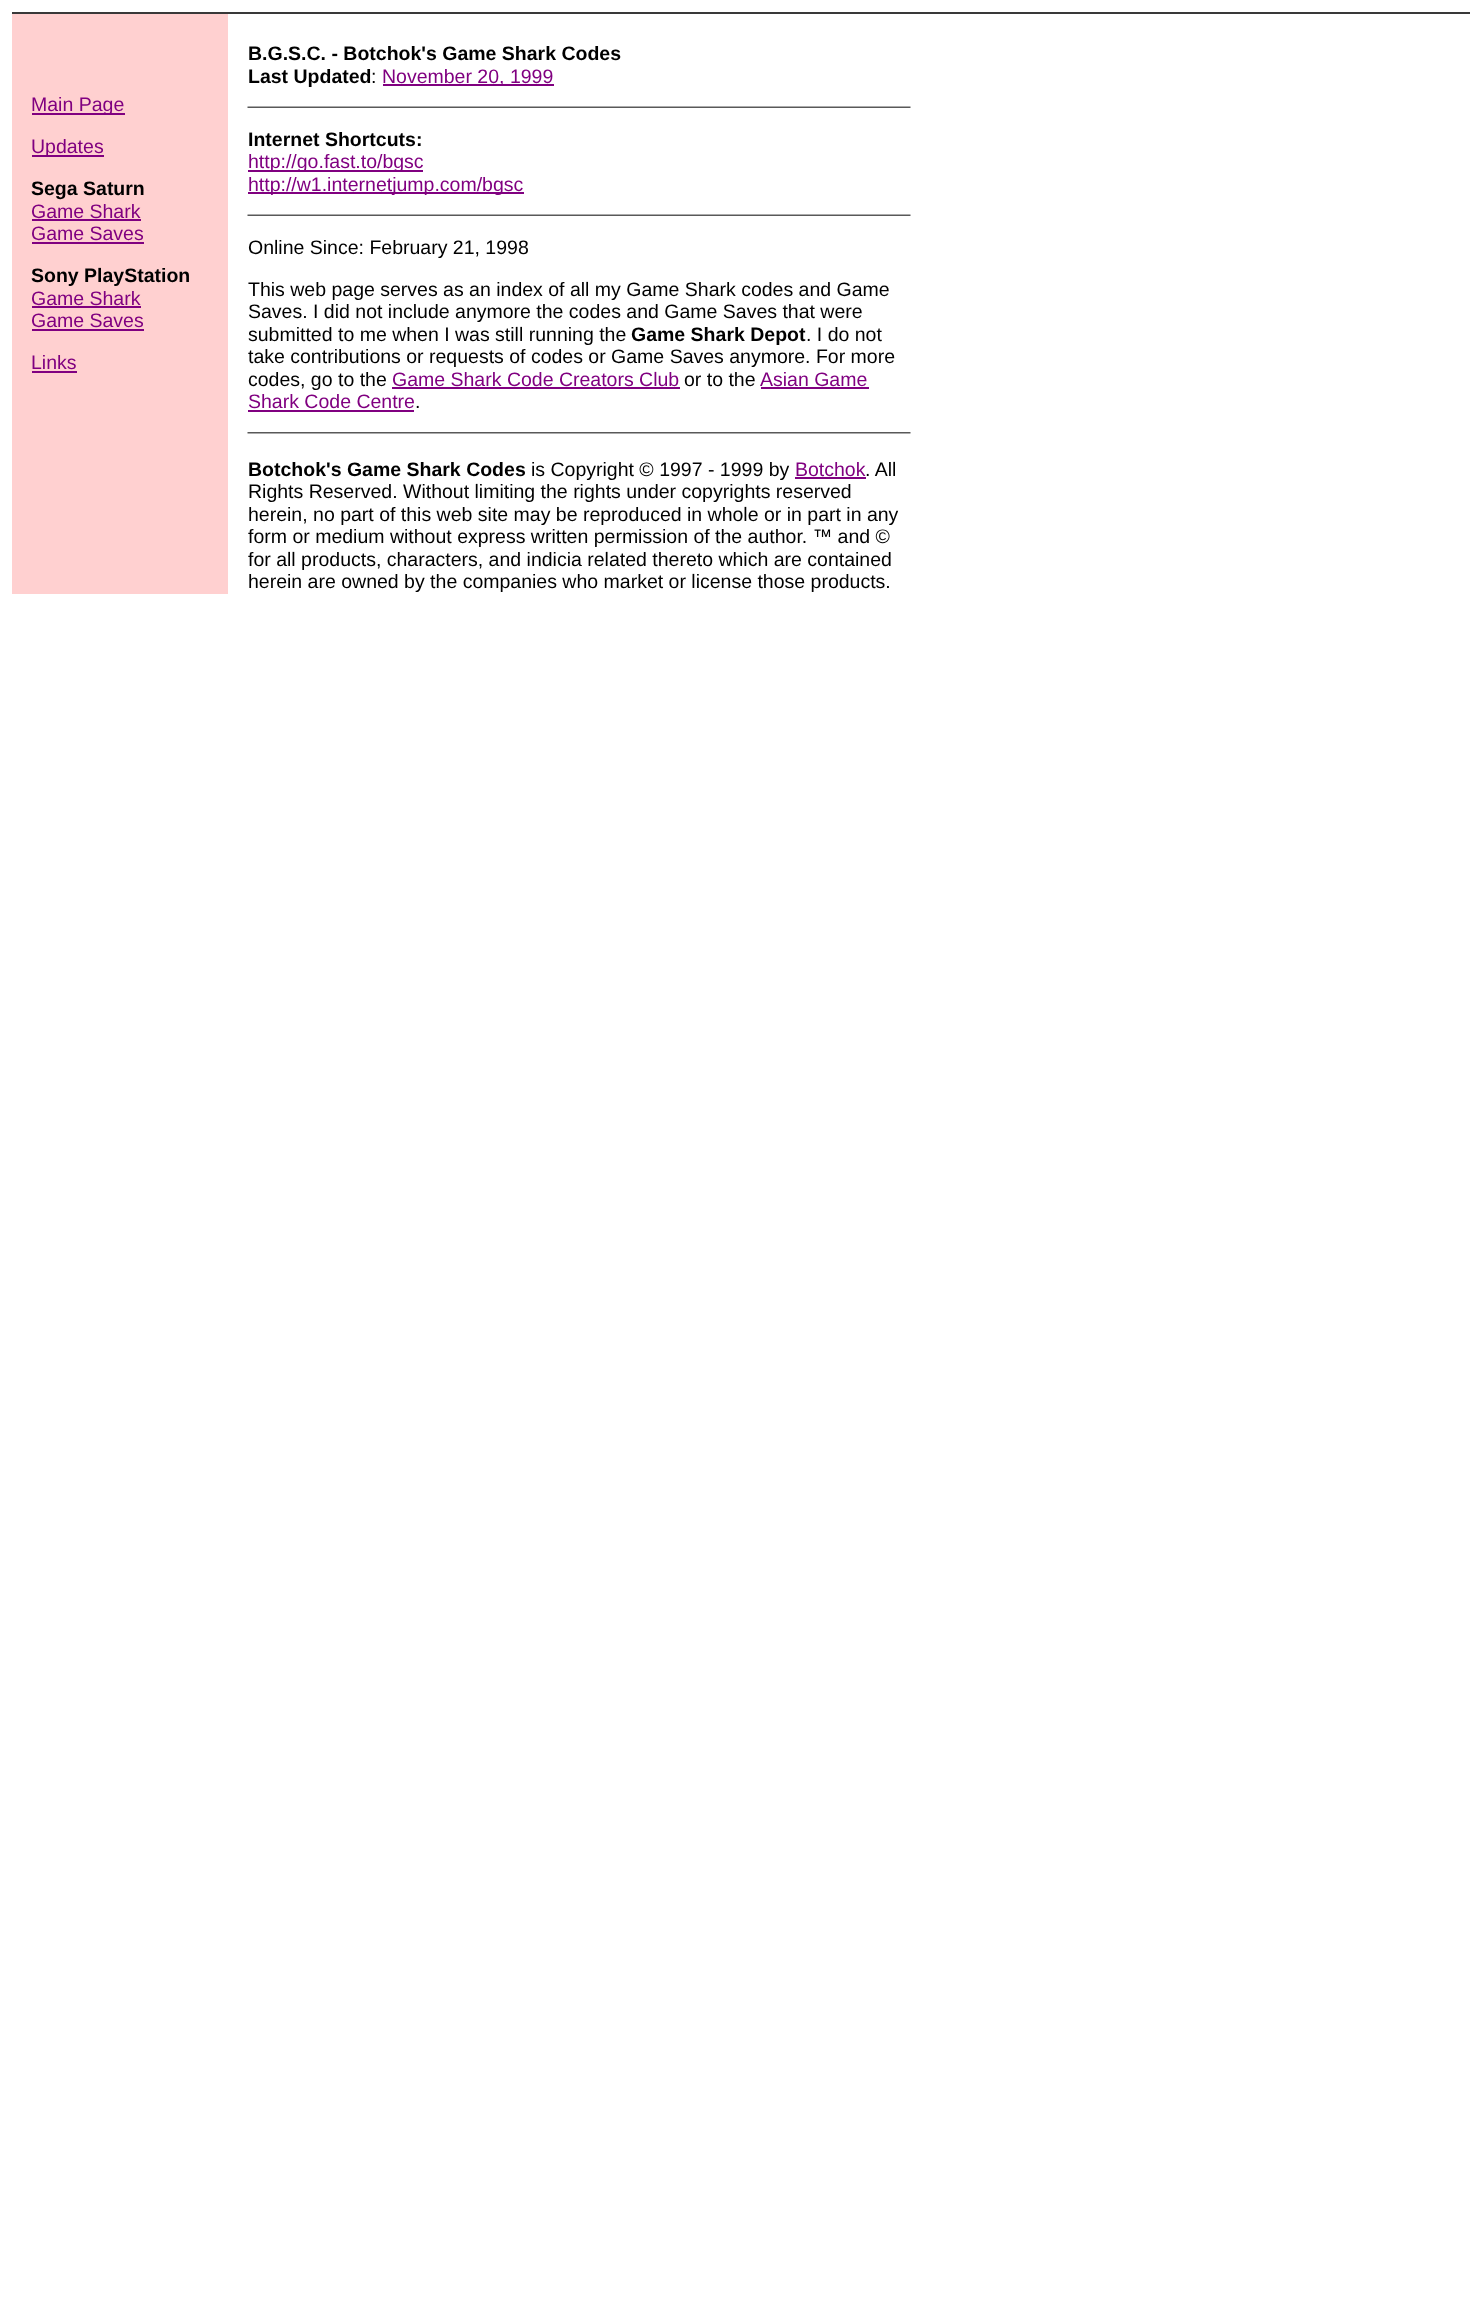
<svg xmlns="http://www.w3.org/2000/svg" width="1481" height="2307">
<rect width="100%" height="100%" fill="#fff"/>
<rect x="12" y="12" width="1458" height="2" fill="#393939"/>
<rect x="12" y="14" width="216" height="580" fill="#ffd0d0"/>
<text x="248" y="60" style="font-family:Liberation Sans;font-size:19.5px;font-weight:bold;fill:#000">B.G.S.C. - Botchok's Game Shark Codes</text>
<text x="248" y="83" style="font-family:Liberation Sans;font-size:19.5px;font-weight:bold;fill:#000">Last Updated</text>
<text x="371" y="83" style="font-family:Liberation Sans;font-size:19.5px;fill:#000">:</text>
<rect x="383" y="84" width="171" height="2" fill="#800080"/>
<text x="382" y="83" style="font-family:Liberation Sans;font-size:19.5px;fill:#800080">November 20, 1999</text>
<image x="247" y="106" width="664" height="2" href="media/1.png"/>
<text x="248" y="146" style="font-family:Liberation Sans;font-size:19.5px;font-weight:bold;fill:#000">Internet Shortcuts:</text>
<rect x="248" y="170" width="175" height="2" fill="#800080"/>
<text x="248" y="168" style="font-family:Liberation Sans;font-size:19.5px;fill:#800080">http://go.fast.to/bgsc</text>
<rect x="248" y="192" width="276" height="2" fill="#800080"/>
<text x="248" y="191" style="font-family:Liberation Sans;font-size:19.5px;fill:#800080">http://w1.internetjump.com/bgsc</text>
<image x="247" y="214" width="664" height="2" href="media/1.png"/>
<text x="248" y="254" style="font-family:Liberation Sans;font-size:19.5px;fill:#000">Online Since: February 21, 1998</text>
<text x="248" y="296" style="font-family:Liberation Sans;font-size:19.5px;fill:#000">This web page serves as an index of all my Game Shark codes and Game</text>
<text x="248" y="318" style="font-family:Liberation Sans;font-size:19.5px;fill:#000">Saves. I did not include anymore the codes and Game Saves that were</text>
<text x="248" y="341" style="font-family:Liberation Sans;font-size:19.5px;fill:#000">submitted to me when I was still running the</text>
<text x="631" y="341" style="font-family:Liberation Sans;font-size:19.5px;font-weight:bold;fill:#000">Game Shark Depot</text>
<text x="806" y="341" style="font-family:Liberation Sans;font-size:19.5px;fill:#000">. I do not</text>
<text x="248" y="363" style="font-family:Liberation Sans;font-size:19.5px;fill:#000">take contributions or requests of codes or Game Saves anymore. For more</text>
<text x="248" y="386" style="font-family:Liberation Sans;font-size:19.5px;fill:#000">codes, go to the</text>
<text x="392" y="386" style="font-family:Liberation Sans;font-size:19.5px;fill:#800080">Game Shark Code Creators Club</text>
<rect x="392" y="387" width="288" height="2" fill="#800080"/>
<text x="684" y="386" style="font-family:Liberation Sans;font-size:19.5px;fill:#000">or to the</text>
<text x="760" y="386" style="font-family:Liberation Sans;font-size:19.5px;fill:#800080">Asian Game</text>
<rect x="761" y="387" width="108" height="2" fill="#800080"/>
<text x="248" y="408" style="font-family:Liberation Sans;font-size:19.5px;fill:#800080">Shark Code Centre</text>
<rect x="248" y="410" width="166" height="2" fill="#800080"/>
<text x="415" y="408" style="font-family:Liberation Sans;font-size:19.5px;fill:#000">.</text>
<image x="247" y="432" width="664" height="2" href="media/2.png"/>
<text x="248" y="476" style="font-family:Liberation Sans;font-size:19.5px;font-weight:bold;fill:#000">Botchok's Game Shark Codes</text>
<text x="531" y="476" style="font-family:Liberation Sans;font-size:19.5px;fill:#000">is Copyright © 1997 - 1999 by</text>
<text x="795" y="476" style="font-family:Liberation Sans;font-size:19.5px;fill:#800080">Botchok</text>
<rect x="795" y="477" width="71" height="2" fill="#800080"/>
<text x="865" y="476" style="font-family:Liberation Sans;font-size:19.5px;fill:#000">. All</text>
<text x="248" y="498" style="font-family:Liberation Sans;font-size:19.5px;fill:#000">Rights Reserved. Without limiting the rights under copyrights reserved</text>
<text x="248" y="521" style="font-family:Liberation Sans;font-size:19.5px;fill:#000">herein, no part of this web site may be reproduced in whole or in part in any</text>
<text x="248" y="543" style="font-family:Liberation Sans;font-size:19.5px;fill:#000">form or medium without express written permission of the author. ™ and ©</text>
<text x="248" y="566" style="font-family:Liberation Sans;font-size:19.5px;fill:#000">for all products, characters, and indicia related thereto which are contained</text>
<text x="248" y="588" style="font-family:Liberation Sans;font-size:19.5px;fill:#000">herein are owned by the companies who market or license those products.</text>
<rect x="32" y="113" width="93" height="2" fill="#800080"/>
<text x="31" y="111" style="font-family:Liberation Sans;font-size:19.5px;fill:#800080">Main Page</text>
<rect x="32" y="155" width="72" height="2" fill="#800080"/>
<text x="31" y="153" style="font-family:Liberation Sans;font-size:19.5px;fill:#800080">Updates</text>
<text x="31" y="195" style="font-family:Liberation Sans;font-size:19.5px;font-weight:bold;fill:#000">Sega Saturn</text>
<text x="31" y="218" style="font-family:Liberation Sans;font-size:19.5px;fill:#800080">Game Shark</text>
<rect x="32" y="219" width="109" height="2" fill="#800080"/>
<text x="31" y="240" style="font-family:Liberation Sans;font-size:19.5px;fill:#800080">Game Saves</text>
<rect x="32" y="242" width="112" height="2" fill="#800080"/>
<text x="31" y="282" style="font-family:Liberation Sans;font-size:19.5px;font-weight:bold;fill:#000">Sony PlayStation</text>
<text x="31" y="305" style="font-family:Liberation Sans;font-size:19.5px;fill:#800080">Game Shark</text>
<rect x="32" y="306" width="109" height="2" fill="#800080"/>
<text x="31" y="327" style="font-family:Liberation Sans;font-size:19.5px;fill:#800080">Game Saves</text>
<rect x="32" y="329" width="112" height="2" fill="#800080"/>
<text x="31" y="369" style="font-family:Liberation Sans;font-size:19.5px;fill:#800080">Links</text>
<rect x="32" y="371" width="45" height="2" fill="#800080"/>
</svg>
